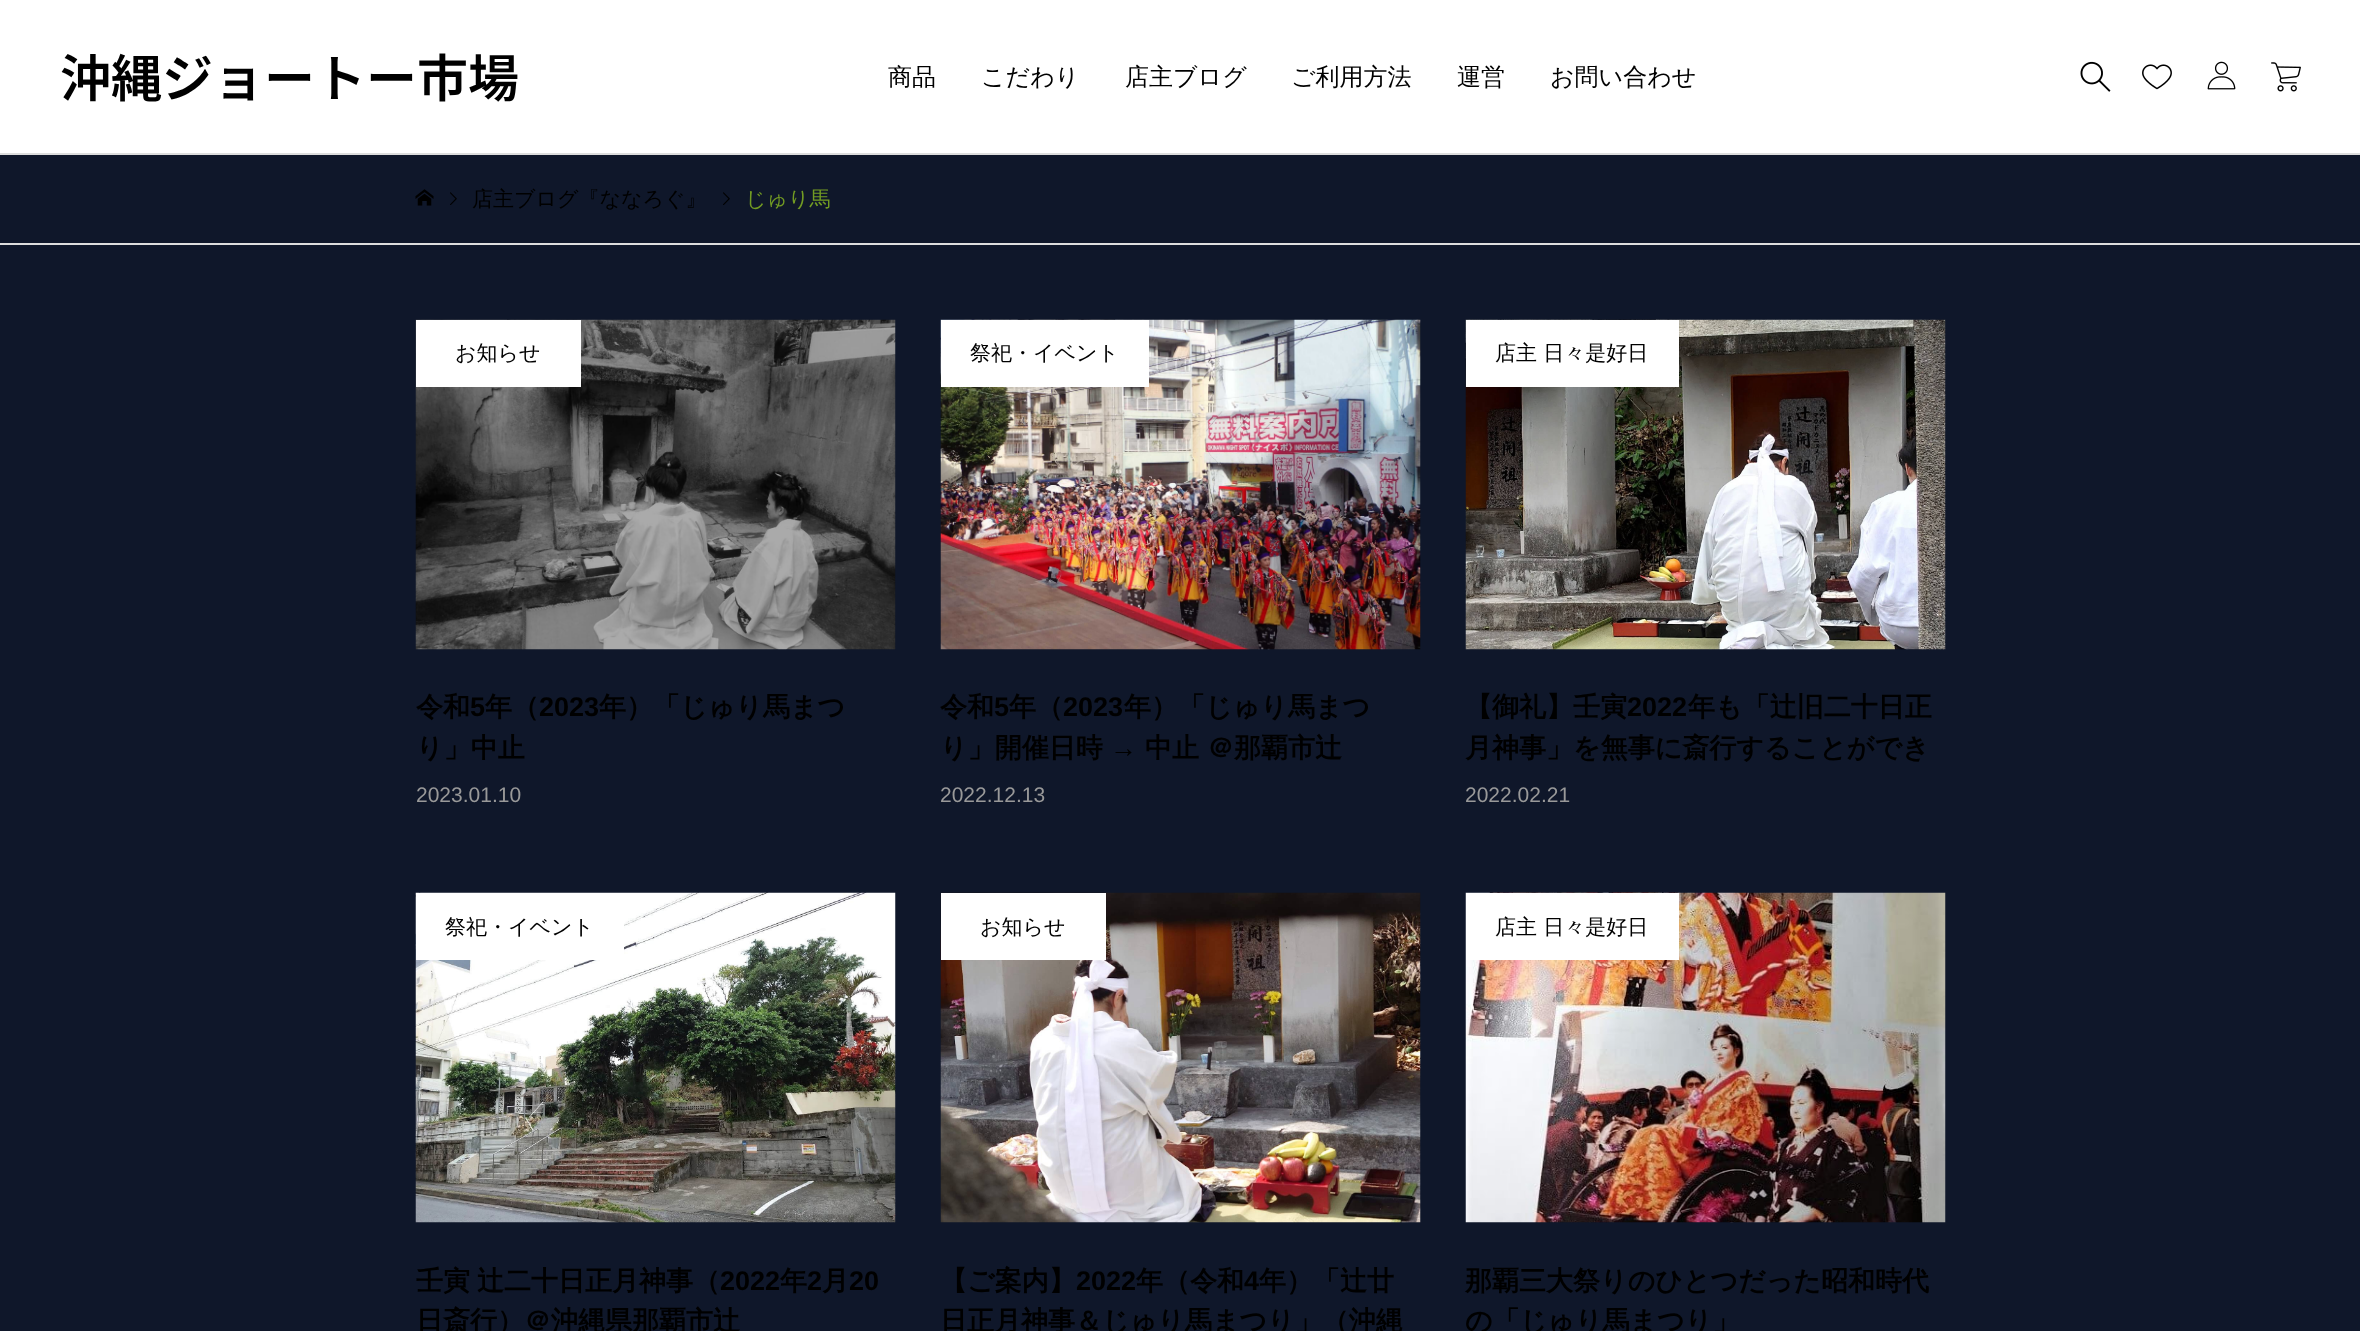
<svg xmlns="http://www.w3.org/2000/svg" width="2360" height="1331">
<rect width="100%" height="100%" fill="#0f172a"/>
<rect width="2360" height="153" fill="#fff"/>
<text x="60" y="97" style="font-family:Noto Sans JP;font-size:51px;font-weight:600;fill:#000">沖縄ジョートー市場</text>
<text x="888" y="85" style="font-family:WenQuanYi Zen Hei;font-size:24px;font-weight:500;fill:#000">商品</text>
<text x="981" y="85" style="font-family:WenQuanYi Zen Hei;font-size:24px;font-weight:500;fill:#000">こだわり</text>
<text x="1125" y="85" style="font-family:WenQuanYi Zen Hei;font-size:24px;font-weight:500;fill:#000">店主ブログ</text>
<text x="1291" y="85" style="font-family:WenQuanYi Zen Hei;font-size:24px;font-weight:500;fill:#000">ご利用方法</text>
<text x="1457" y="85" style="font-family:WenQuanYi Zen Hei;font-size:24px;font-weight:500;fill:#000">運営</text>
<text x="1550" y="85" style="font-family:WenQuanYi Zen Hei;font-size:24px;font-weight:500;fill:#000">お問い合わせ</text>
<image x="2080" y="61" width="31" height="31" href="media/1.png"/>
<image x="2142" y="64" width="30" height="26" href="media/2.png"/>
<image x="2207" y="61" width="29" height="29" href="media/3.png"/>
<image x="2271" y="62" width="30" height="30" href="media/4.png"/>
<rect y="153" width="2360" height="2" fill="#ddd"/>
<rect y="243" width="2360" height="2" fill="#ddd"/>
<image x="415" y="189" width="19" height="17" href="media/5.png"/>
<image x="450" y="192" width="7" height="13" href="media/6.png"/>
<text x="472" y="206" style="font-family:WenQuanYi Zen Hei;font-size:21px;font-weight:500;fill:#000">店主ブログ『ななろぐ』</text>
<image x="723" y="192" width="7" height="13" href="media/6.png"/>
<text x="745" y="206" style="font-family:WenQuanYi Zen Hei;font-size:21px;font-weight:500;fill:#729b23">じゅり馬</text>
<image x="415" y="319" width="481" height="331" href="media/7.png"/>
<rect x="416" y="320" width="165" height="67" fill="#fff"/>
<text x="455" y="360" style="font-family:WenQuanYi Zen Hei;font-size:21px;font-weight:500;fill:#000">お知らせ</text>
<text x="416" y="716" style="font-family:WenQuanYi Zen Hei;font-size:27px;font-weight:bold;fill:#000">令和</text>
<text x="470" y="716" style="font-family:Liberation Sans;font-size:27px;font-weight:bold;fill:#000">5</text>
<text x="485" y="716" style="font-family:WenQuanYi Zen Hei;font-size:27px;font-weight:bold;fill:#000">年（</text>
<text x="539" y="716" style="font-family:Liberation Sans;font-size:27px;font-weight:bold;fill:#000">2023</text>
<text x="599" y="716" style="font-family:WenQuanYi Zen Hei;font-size:27px;font-weight:bold;fill:#000">年）「じゅり馬まつ</text>
<text x="416" y="757" style="font-family:WenQuanYi Zen Hei;font-size:27px;font-weight:bold;fill:#000">り」中止</text>
<text x="416" y="802" style="font-family:Liberation Sans;font-size:21px;fill:#999">2023.01.10</text>
<image x="940" y="319" width="481" height="331" href="media/8.png"/>
<rect x="941" y="320" width="208" height="67" fill="#fff"/>
<text x="970" y="360" style="font-family:WenQuanYi Zen Hei;font-size:21px;font-weight:500;fill:#000">祭祀・イベント</text>
<text x="940" y="716" style="font-family:WenQuanYi Zen Hei;font-size:27px;font-weight:bold;fill:#000">令和</text>
<text x="994" y="716" style="font-family:Liberation Sans;font-size:27px;font-weight:bold;fill:#000">5</text>
<text x="1009" y="716" style="font-family:WenQuanYi Zen Hei;font-size:27px;font-weight:bold;fill:#000">年（</text>
<text x="1063" y="716" style="font-family:Liberation Sans;font-size:27px;font-weight:bold;fill:#000">2023</text>
<text x="1124" y="716" style="font-family:WenQuanYi Zen Hei;font-size:27px;font-weight:bold;fill:#000">年）「じゅり馬まつ</text>
<text x="940" y="757" style="font-family:WenQuanYi Zen Hei;font-size:27px;font-weight:bold;fill:#000">り」開催日時</text>
<text x="1110" y="757" style="font-family:Liberation Sans;font-size:27px;font-weight:bold;fill:#000">→</text>
<text x="1145" y="757" style="font-family:WenQuanYi Zen Hei;font-size:27px;font-weight:bold;fill:#000">中止 ＠那覇市辻</text>
<text x="940" y="802" style="font-family:Liberation Sans;font-size:21px;fill:#999">2022.12.13</text>
<image x="1465" y="319" width="481" height="331" href="media/9.png"/>
<rect x="1466" y="320" width="213" height="67" fill="#fff"/>
<text x="1495" y="360" style="font-family:WenQuanYi Zen Hei;font-size:21px;font-weight:500;fill:#000">店主 日々是好日</text>
<text x="1465" y="716" style="font-family:WenQuanYi Zen Hei;font-size:27px;font-weight:bold;fill:#000">【御礼】壬寅</text>
<text x="1627" y="716" style="font-family:Liberation Sans;font-size:27px;font-weight:bold;fill:#000">2022</text>
<text x="1688" y="716" style="font-family:WenQuanYi Zen Hei;font-size:27px;font-weight:bold;fill:#000">年も「辻旧二十日正</text>
<text x="1465" y="757" style="font-family:WenQuanYi Zen Hei;font-size:27px;font-weight:bold;fill:#000">月神事」を無事に斎行することができ</text>
<text x="1465" y="802" style="font-family:Liberation Sans;font-size:21px;fill:#999">2022.02.21</text>
<image x="415" y="892" width="481" height="331" href="media/10.png"/>
<rect x="416" y="893" width="208" height="67" fill="#fff"/>
<text x="445" y="934" style="font-family:WenQuanYi Zen Hei;font-size:21px;font-weight:500;fill:#000">祭祀・イベント</text>
<text x="416" y="1290" word-spacing="-1" style="font-family:WenQuanYi Zen Hei;font-size:27px;font-weight:bold;fill:#000">壬寅 辻二十日正月神事（</text>
<text x="720" y="1290" style="font-family:Liberation Sans;font-size:27px;font-weight:bold;fill:#000">2022</text>
<text x="780" y="1290" style="font-family:WenQuanYi Zen Hei;font-size:27px;font-weight:bold;fill:#000">年</text>
<text x="807" y="1290" style="font-family:Liberation Sans;font-size:27px;font-weight:bold;fill:#000">2</text>
<text x="822" y="1290" style="font-family:WenQuanYi Zen Hei;font-size:27px;font-weight:bold;fill:#000">月</text>
<text x="849" y="1290" style="font-family:Liberation Sans;font-size:27px;font-weight:bold;fill:#000">20</text>
<text x="416" y="1330" style="font-family:WenQuanYi Zen Hei;font-size:27px;font-weight:bold;fill:#000">日斎行）＠沖縄県那覇市辻</text>
<image x="940" y="892" width="481" height="331" href="media/11.png"/>
<rect x="941" y="893" width="165" height="67" fill="#fff"/>
<text x="980" y="934" style="font-family:WenQuanYi Zen Hei;font-size:21px;font-weight:500;fill:#000">お知らせ</text>
<text x="940" y="1290" style="font-family:WenQuanYi Zen Hei;font-size:27px;font-weight:bold;fill:#000">【ご案内】</text>
<text x="1076" y="1290" style="font-family:Liberation Sans;font-size:27px;font-weight:bold;fill:#000">2022</text>
<text x="1136" y="1290" style="font-family:WenQuanYi Zen Hei;font-size:27px;font-weight:bold;fill:#000">年（令和</text>
<text x="1244" y="1290" style="font-family:Liberation Sans;font-size:27px;font-weight:bold;fill:#000">4</text>
<text x="1259" y="1290" style="font-family:WenQuanYi Zen Hei;font-size:27px;font-weight:bold;fill:#000">年）「辻廿</text>
<text x="940" y="1330" style="font-family:WenQuanYi Zen Hei;font-size:27px;font-weight:bold;fill:#000">日正月神事＆じゅり馬まつり」（沖縄</text>
<image x="1465" y="892" width="481" height="331" href="media/12.png"/>
<rect x="1466" y="893" width="213" height="67" fill="#fff"/>
<text x="1495" y="934" style="font-family:WenQuanYi Zen Hei;font-size:21px;font-weight:500;fill:#000">店主 日々是好日</text>
<text x="1465" y="1290" style="font-family:WenQuanYi Zen Hei;font-size:27px;font-weight:bold;fill:#000">那覇三大祭りのひとつだった昭和時代</text>
<text x="1465" y="1330" style="font-family:WenQuanYi Zen Hei;font-size:27px;font-weight:bold;fill:#000">の「じゅり馬まつり」</text>
</svg>
